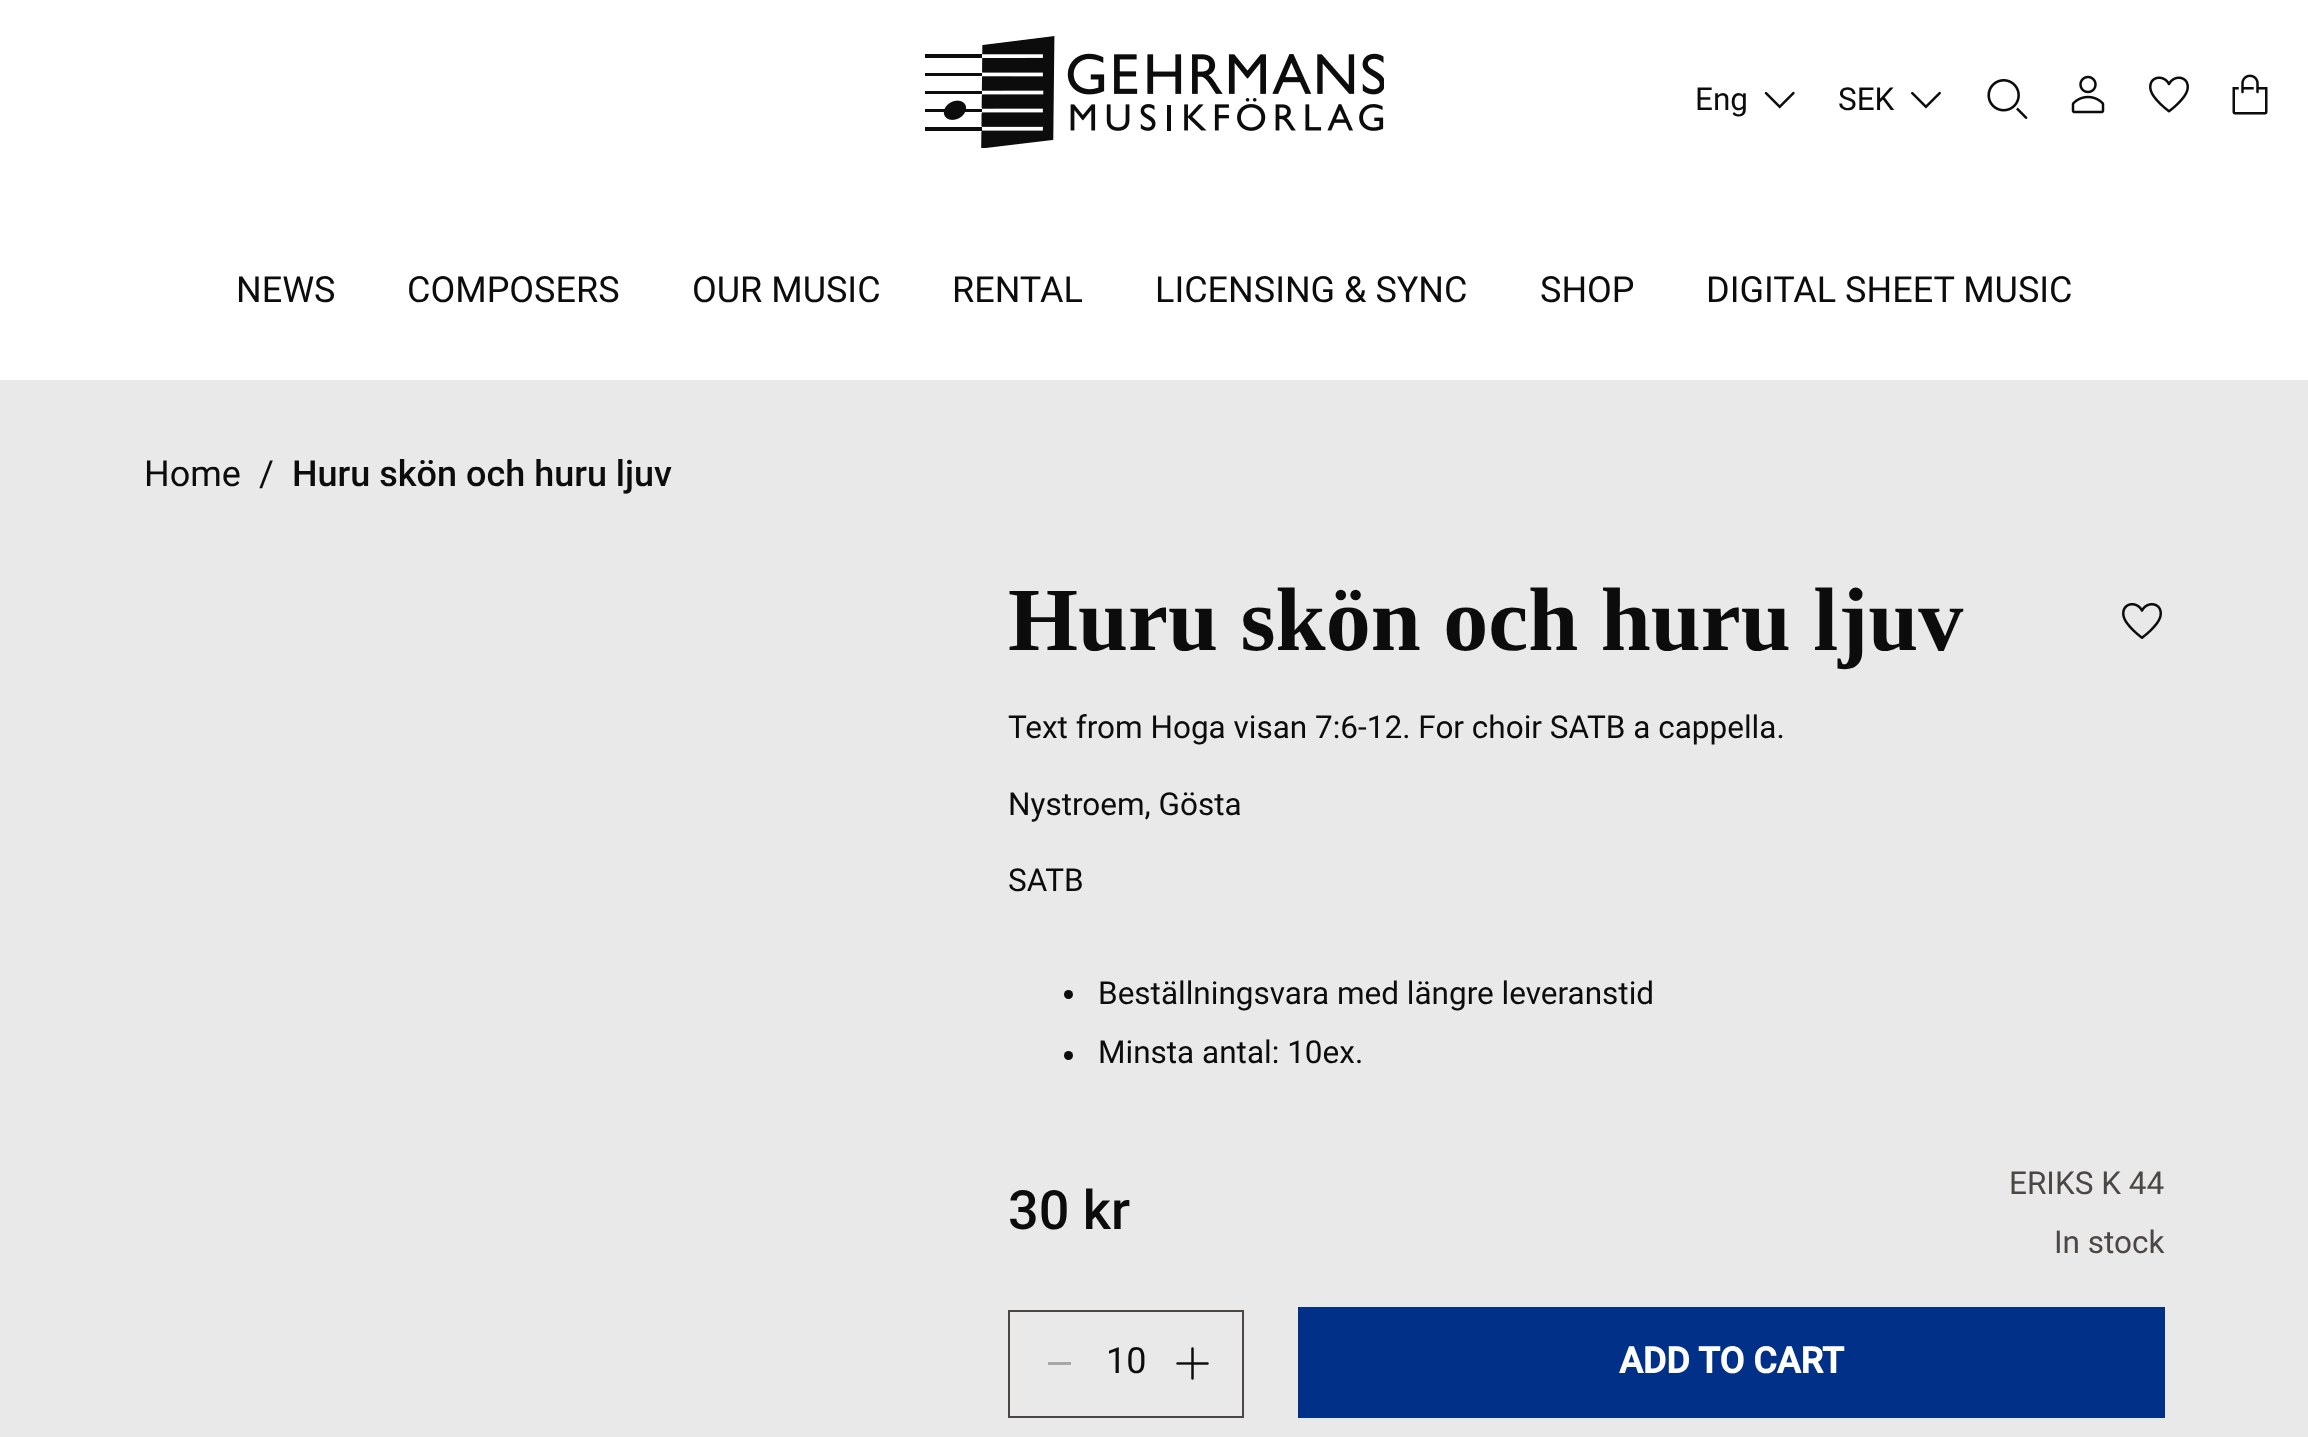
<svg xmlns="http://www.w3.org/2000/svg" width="2308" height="1437">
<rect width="100%" height="100%" fill="#fff"/>
<image x="925" y="36" width="459" height="112" href="media/1.png"/>
<text x="1695" y="110" style="font-family:Roboto;font-size:31.5px;fill:#0c0c0c">Eng</text>
<image x="1764" y="91" width="31" height="18" href="media/2.png"/>
<text x="1838" y="110" style="font-family:Roboto;font-size:31.5px;fill:#0c0c0c">SEK</text>
<image x="1911" y="91" width="30" height="18" href="media/3.png"/>
<image x="1987" y="79" width="41" height="40" href="media/4.png"/>
<image x="2071" y="75" width="34" height="39" href="media/5.png"/>
<image x="2149" y="76" width="40" height="37" href="media/6.png"/>
<image x="2232" y="74" width="36" height="41" href="media/7.png"/>
<text x="236" y="302" style="font-family:Roboto;font-size:36px;fill:#0c0c0c">NEWS</text>
<text x="407" y="302" style="font-family:Roboto;font-size:36px;fill:#0c0c0c">COMPOSERS</text>
<text x="692" y="302" style="font-family:Roboto;font-size:36px;fill:#0c0c0c">OUR MUSIC</text>
<text x="952" y="302" style="font-family:Roboto;font-size:36px;fill:#0c0c0c">RENTAL</text>
<text x="1155" y="302" style="font-family:Roboto;font-size:36px;fill:#0c0c0c">LICENSING &amp; SYNC</text>
<text x="1540" y="302" style="font-family:Roboto;font-size:36px;fill:#0c0c0c">SHOP</text>
<text x="1706" y="302" style="font-family:Roboto;font-size:36px;fill:#0c0c0c">DIGITAL SHEET MUSIC</text>
<rect y="380" width="2308" height="1057" fill="#e9e9e9"/>
<text x="144" y="486" style="font-family:Roboto;font-size:36px;fill:#0c0c0c">Home</text>
<text x="259" y="486" style="font-family:Roboto;font-size:36px;fill:#0c0c0c">/</text>
<text x="292" y="486" style="font-family:Roboto;font-size:36px;font-weight:500;fill:#0c0c0c">Huru skön och huru ljuv</text>
<text x="1008" y="650" style="font-family:Liberation Serif;font-size:90px;font-weight:bold;fill:#0c0c0c">Huru skön och huru ljuv</text>
<image x="2122" y="603" width="40" height="36" href="media/8.png"/>
<text x="1008" y="738" style="font-family:Roboto;font-size:31.5px;fill:#0c0c0c">Text from Hoga visan 7:6-12. For choir SATB a cappella.</text>
<text x="1008" y="815" style="font-family:Roboto;font-size:31.5px;fill:#0c0c0c">Nystroem, Gösta</text>
<text x="1008" y="891" style="font-family:Roboto;font-size:31.5px;fill:#0c0c0c">SATB</text>
<circle cx="1068.5" cy="994.5" r="4.5" fill="#0c0c0c"/>
<text x="1098" y="1004" style="font-family:Roboto;font-size:31.5px;fill:#0c0c0c">Beställningsvara med längre leveranstid</text>
<circle cx="1068.5" cy="1055.5" r="4.5" fill="#0c0c0c"/>
<text x="1098" y="1063" style="font-family:Roboto;font-size:31.5px;fill:#0c0c0c">Minsta antal: 10ex.</text>
<text x="1008" y="1229" style="font-family:Roboto;font-size:54px;font-weight:500;fill:#0c0c0c">30 kr</text>
<text x="2009" y="1194" style="font-family:Roboto;font-size:31.5px;fill:#4a4745">ERIKS K 44</text>
<text x="2054" y="1253" style="font-family:Roboto;font-size:31.5px;fill:#4a4745">In stock</text>
<rect x="1009" y="1311" width="234" height="106" fill="none" stroke="#4a4745" stroke-width="2"/>
<rect x="1048" y="1362" width="23" height="3" fill="#a7a7a7"/>
<text x="1106" y="1373" style="font-family:Roboto;font-size:36px;fill:#0c0c0c">10</text>
<image x="1176" y="1347" width="33" height="33" href="media/9.png"/>
<rect x="1298" y="1307" width="867" height="111" fill="#003087"/>
<text x="1619" y="1373" style="font-family:Roboto;font-size:36px;font-weight:bold;fill:#fff">ADD TO CART</text>
</svg>
